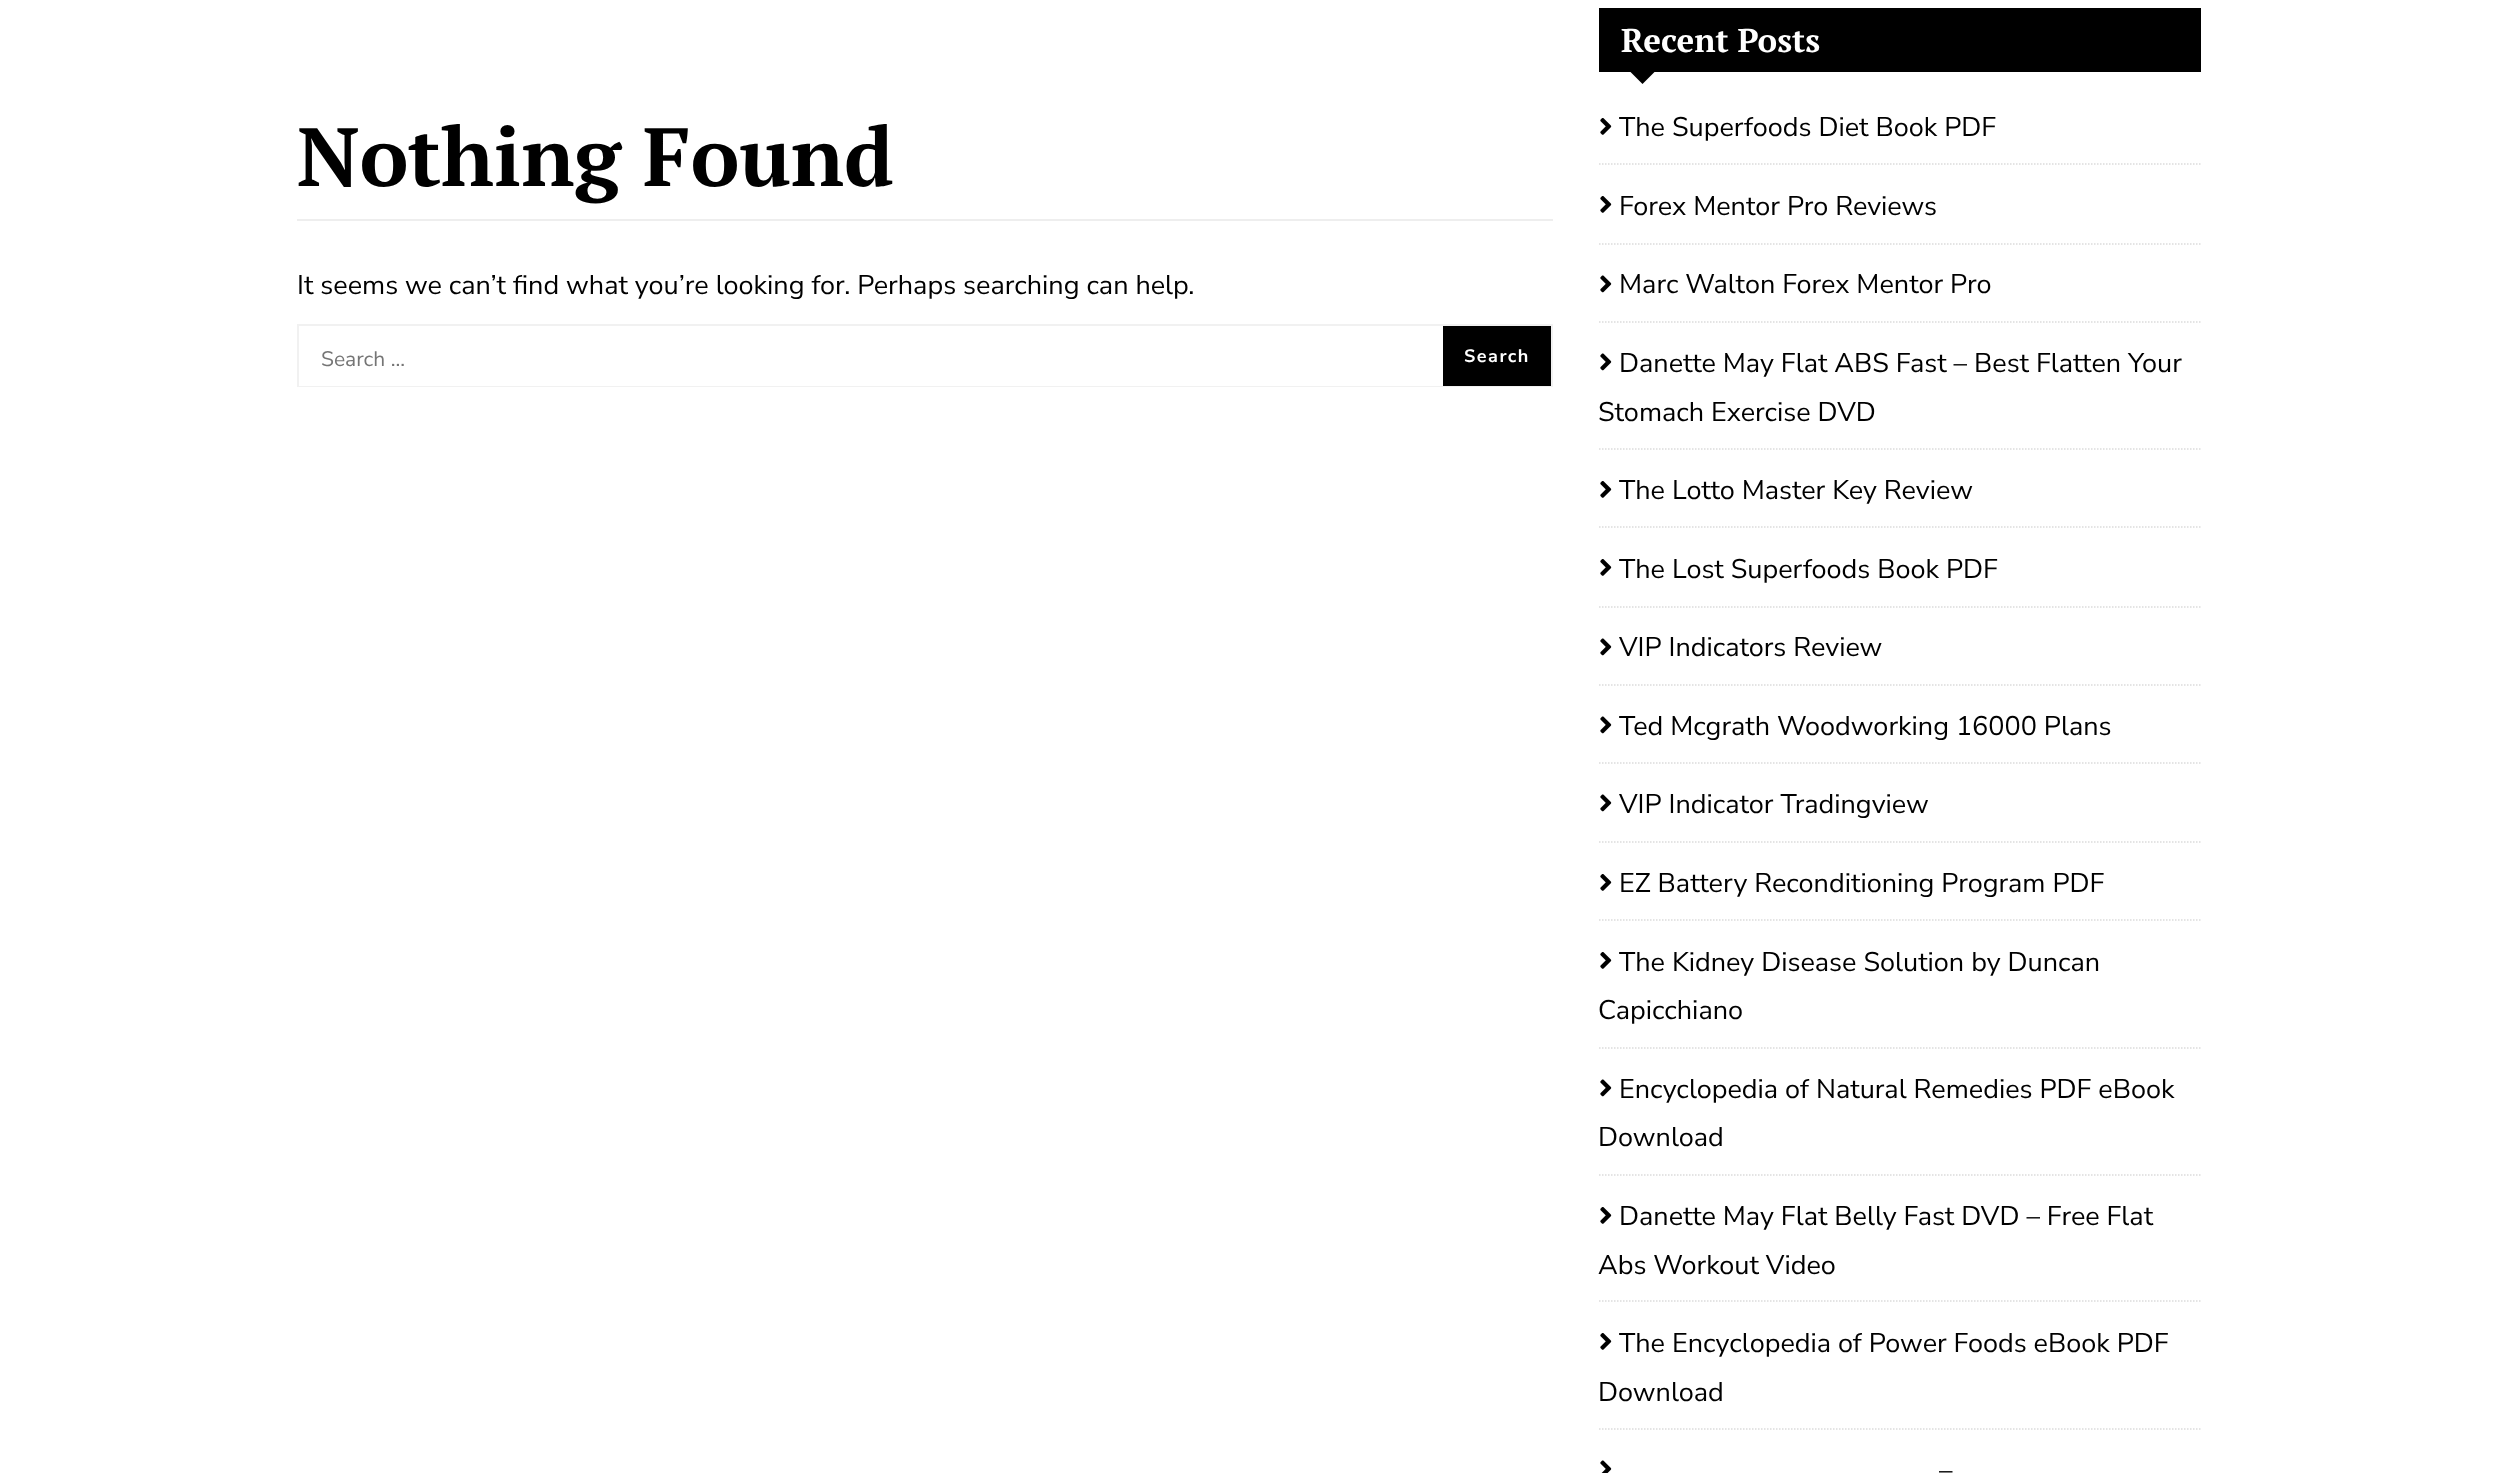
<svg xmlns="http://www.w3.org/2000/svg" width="2498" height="1473">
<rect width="100%" height="100%" fill="#fff"/>
<rect x="297" y="219" width="1256" height="2" fill="#eee"/>
<text x="297" y="186" style="font-family:PT Serif;font-size:82.5px;font-weight:bold;fill:#000">Nothing Found</text>
<text x="297" y="294" style="font-family:Nunito Sans;font-size:27px;fill:#000">It seems we can’t find what you’re looking for. Perhaps searching can help.</text>
<rect x="298" y="325" width="1254" height="61" fill="none" stroke="#f1f1f1" stroke-width="2"/>
<rect x="299" y="385" width="1144" height="1" fill="#fff"/>
<text x="321" y="366" style="font-family:Nunito Sans;font-size:21px;fill:#757575">Search ...</text>
<rect x="1443" y="326" width="108" height="60" fill="#000"/>
<text x="1464" y="362" style="font-family:Nunito Sans;font-size:18px;font-weight:bold;letter-spacing:1.5px;fill:#fff">Search</text>
<rect x="1599" y="8" width="602" height="64" fill="#000"/>
<text x="1621" y="52" style="font-family:PT Serif;font-size:33px;font-weight:bold;fill:#fff">Recent Posts</text>
<path d="M1629 70.5h27l-13.5 13.5z" fill="#000"/>
<path d="M1599 164h601.5" fill="none" stroke="#dbdbdb" stroke-width="1.5" stroke-dasharray="1.5 1.5"/>
<image x="1600" y="118" width="12" height="17" href="media/1.png"/>
<text x="1619" y="136" style="font-family:Nunito Sans;font-size:27px;fill:#000">The Superfoods Diet Book PDF</text>
<path d="M1599 244h601.5" fill="none" stroke="#dbdbdb" stroke-width="1.5" stroke-dasharray="1.5 1.5"/>
<image x="1600" y="196" width="12" height="17" href="media/1.png"/>
<text x="1619" y="215" style="font-family:Nunito Sans;font-size:27px;fill:#000">Forex Mentor Pro Reviews</text>
<path d="M1599 322h601.5" fill="none" stroke="#dbdbdb" stroke-width="1.5" stroke-dasharray="1.5 1.5"/>
<image x="1600" y="275" width="12" height="18" href="media/2.png"/>
<text x="1619" y="293" style="font-family:Nunito Sans;font-size:27px;fill:#000">Marc Walton Forex Mentor Pro</text>
<path d="M1599 449h601.5" fill="none" stroke="#dbdbdb" stroke-width="1.5" stroke-dasharray="1.5 1.5"/>
<image x="1600" y="353" width="12" height="18" href="media/2.png"/>
<text x="1619" y="372" style="font-family:Nunito Sans;font-size:27px;fill:#000">Danette May Flat ABS Fast – Best Flatten Your</text>
<text x="1598" y="421" style="font-family:Nunito Sans;font-size:27px;fill:#000">Stomach Exercise DVD</text>
<path d="M1599 527h601.5" fill="none" stroke="#dbdbdb" stroke-width="1.5" stroke-dasharray="1.5 1.5"/>
<image x="1600" y="481" width="12" height="17" href="media/1.png"/>
<text x="1619" y="499" style="font-family:Nunito Sans;font-size:27px;fill:#000">The Lotto Master Key Review</text>
<path d="M1599 607h601.5" fill="none" stroke="#dbdbdb" stroke-width="1.5" stroke-dasharray="1.5 1.5"/>
<image x="1600" y="559" width="12" height="17" href="media/1.png"/>
<text x="1619" y="578" style="font-family:Nunito Sans;font-size:27px;fill:#000">The Lost Superfoods Book PDF</text>
<path d="M1599 685h601.5" fill="none" stroke="#dbdbdb" stroke-width="1.5" stroke-dasharray="1.5 1.5"/>
<image x="1600" y="638" width="12" height="18" href="media/2.png"/>
<text x="1619" y="656" style="font-family:Nunito Sans;font-size:27px;fill:#000">VIP Indicators Review</text>
<path d="M1599 763h601.5" fill="none" stroke="#dbdbdb" stroke-width="1.5" stroke-dasharray="1.5 1.5"/>
<image x="1600" y="716" width="12" height="18" href="media/2.png"/>
<text x="1619" y="735" style="font-family:Nunito Sans;font-size:27px;fill:#000">Ted Mcgrath Woodworking 16000 Plans</text>
<path d="M1599 842h601.5" fill="none" stroke="#dbdbdb" stroke-width="1.5" stroke-dasharray="1.5 1.5"/>
<image x="1600" y="794" width="12" height="18" href="media/2.png"/>
<text x="1619" y="813" style="font-family:Nunito Sans;font-size:27px;fill:#000">VIP Indicator Tradingview</text>
<path d="M1599 920h601.5" fill="none" stroke="#dbdbdb" stroke-width="1.5" stroke-dasharray="1.5 1.5"/>
<image x="1600" y="874" width="12" height="17" href="media/1.png"/>
<text x="1619" y="892" style="font-family:Nunito Sans;font-size:27px;fill:#000">EZ Battery Reconditioning Program PDF</text>
<path d="M1599 1048h601.5" fill="none" stroke="#dbdbdb" stroke-width="1.5" stroke-dasharray="1.5 1.5"/>
<image x="1600" y="952" width="12" height="17" href="media/1.png"/>
<text x="1619" y="971" style="font-family:Nunito Sans;font-size:27px;fill:#000">The Kidney Disease Solution by Duncan</text>
<text x="1598" y="1019" style="font-family:Nunito Sans;font-size:27px;fill:#000">Capicchiano</text>
<path d="M1599 1175h601.5" fill="none" stroke="#dbdbdb" stroke-width="1.5" stroke-dasharray="1.5 1.5"/>
<image x="1600" y="1079" width="12" height="18" href="media/2.png"/>
<text x="1619" y="1098" style="font-family:Nunito Sans;font-size:27px;fill:#000">Encyclopedia of Natural Remedies PDF eBook</text>
<text x="1598" y="1146" style="font-family:Nunito Sans;font-size:27px;fill:#000">Download</text>
<path d="M1599 1301h601.5" fill="none" stroke="#dbdbdb" stroke-width="1.5" stroke-dasharray="1.5 1.5"/>
<image x="1600" y="1207" width="12" height="17" href="media/1.png"/>
<text x="1619" y="1225" style="font-family:Nunito Sans;font-size:27px;fill:#000">Danette May Flat Belly Fast DVD – Free Flat</text>
<text x="1598" y="1274" style="font-family:Nunito Sans;font-size:27px;fill:#000">Abs Workout Video</text>
<path d="M1599 1429h601.5" fill="none" stroke="#dbdbdb" stroke-width="1.5" stroke-dasharray="1.5 1.5"/>
<image x="1600" y="1333" width="12" height="17" href="media/1.png"/>
<text x="1619" y="1352" style="font-family:Nunito Sans;font-size:27px;fill:#000">The Encyclopedia of Power Foods eBook PDF</text>
<text x="1598" y="1401" style="font-family:Nunito Sans;font-size:27px;fill:#000">Download</text>
<image x="1600" y="1460" width="12" height="13" href="media/3.png"/>
<text x="1939" y="1479" style="font-family:Nunito Sans;font-size:27px;fill:#000">–</text>
</svg>
